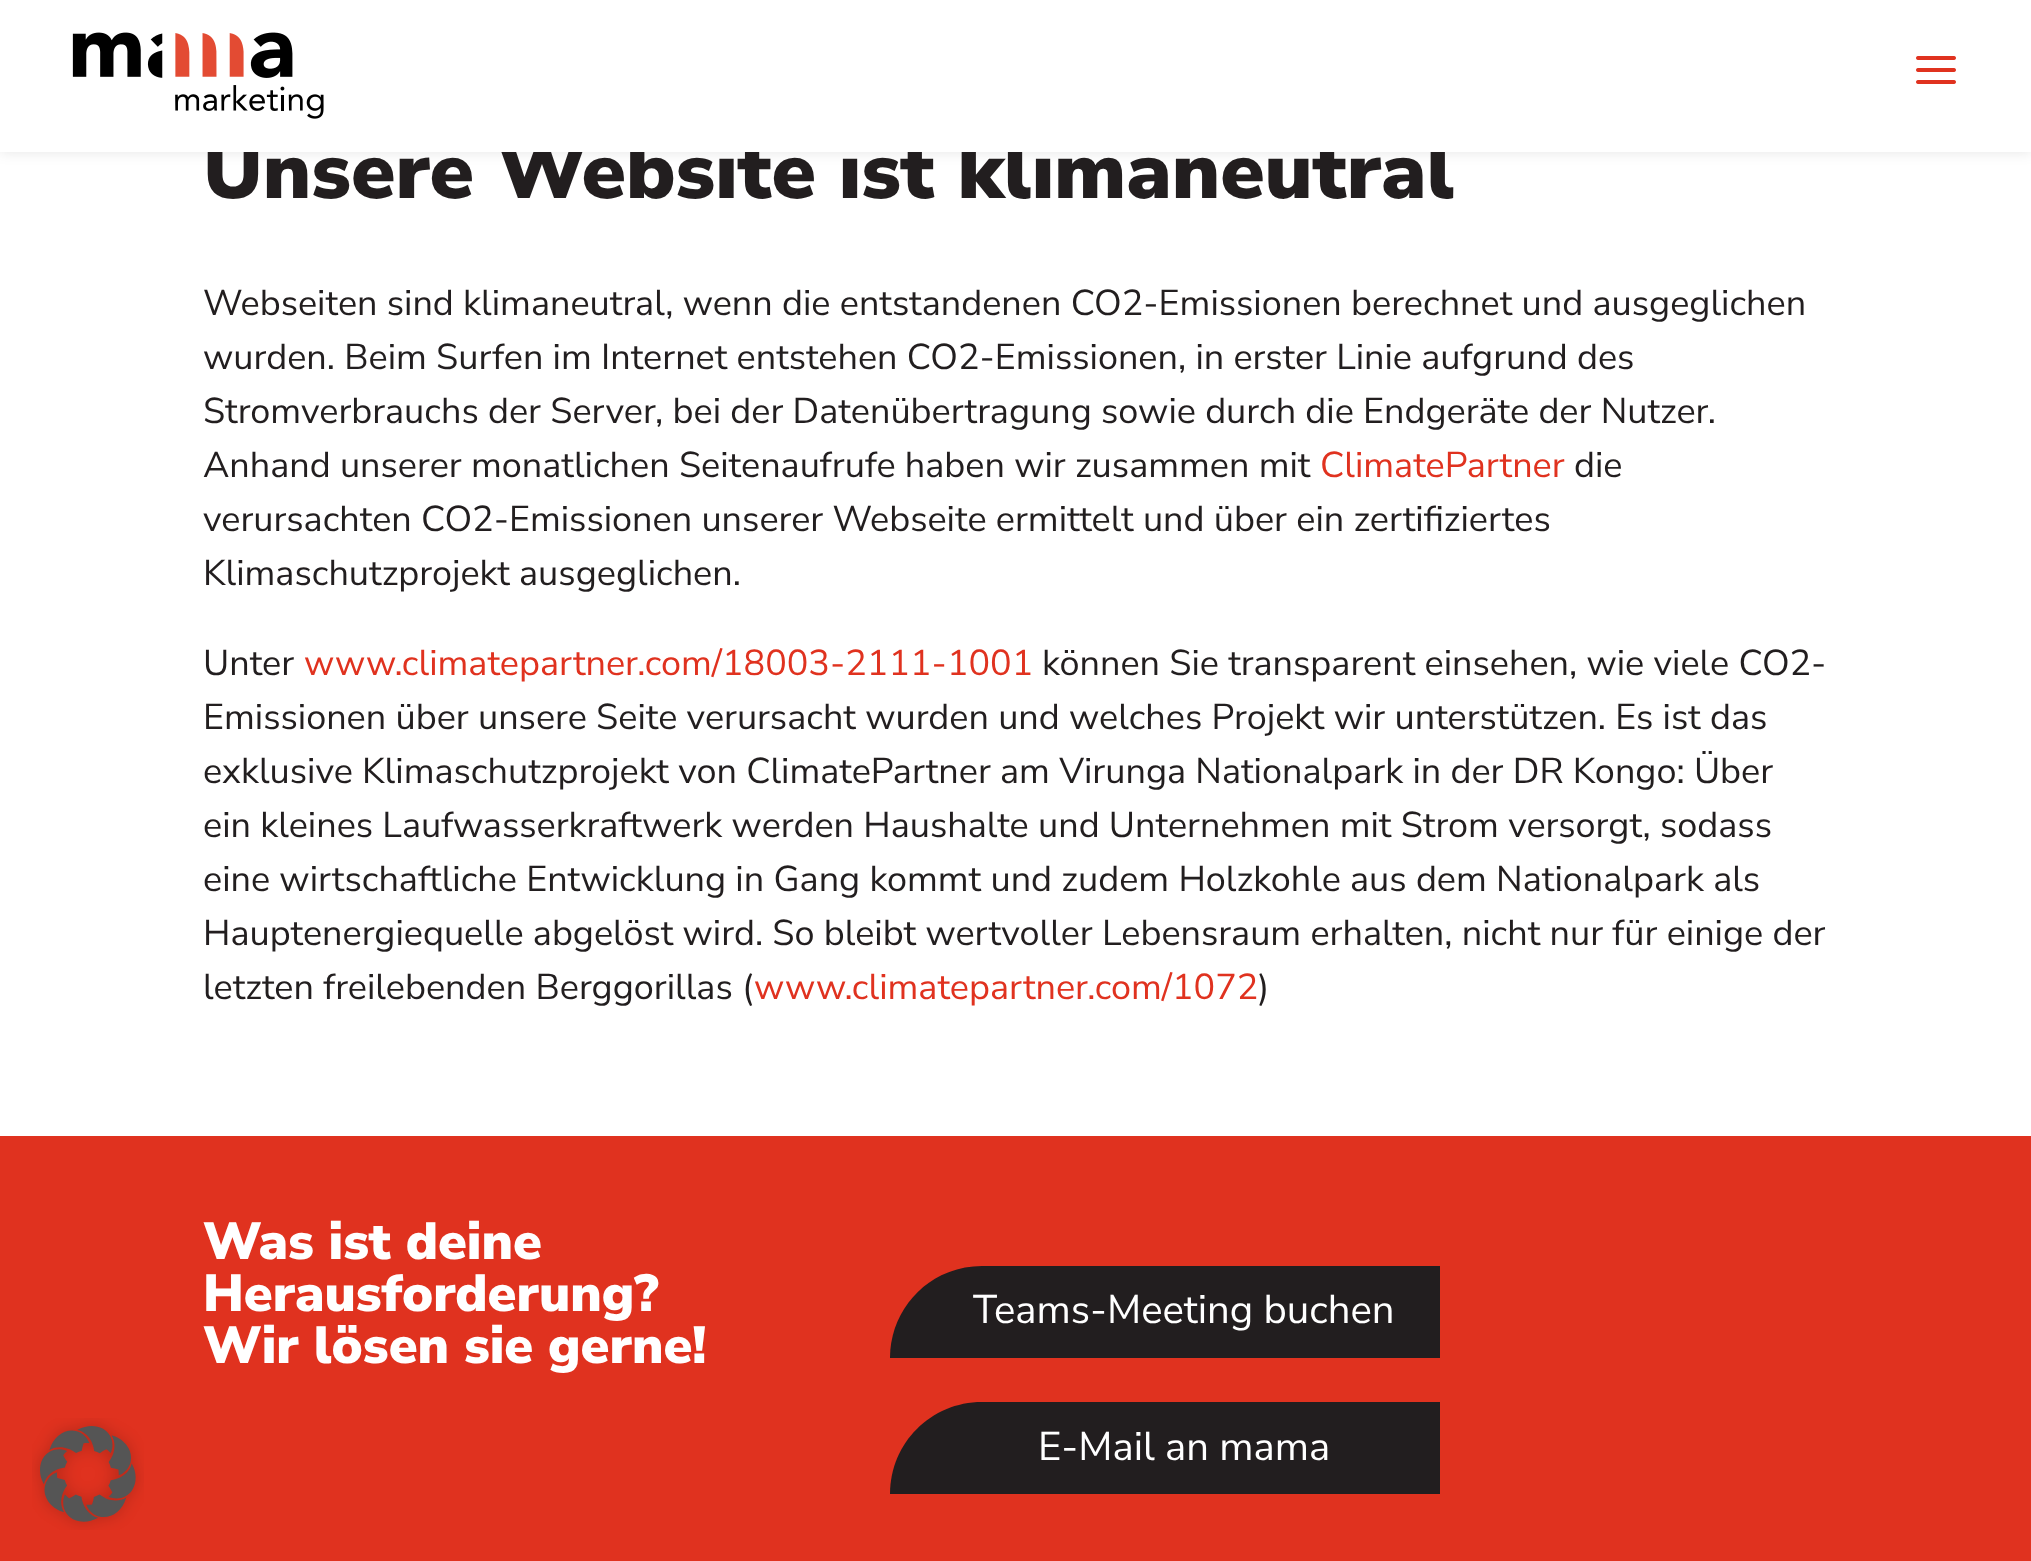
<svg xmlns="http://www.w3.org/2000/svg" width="2031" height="1561">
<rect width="100%" height="100%" fill="#fff"/>
<rect width="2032" height="152" fill="#0000001a" filter="blur(7px)"/>
<text x="203" y="198" style="font-family:Nunito Sans;font-size:80px;font-weight:200;fill:#221e1f">Unsere Website ist klimaneutral</text>
<rect width="2031" height="152" fill="#fff"/>
<image x="72" y="32" width="252" height="87" href="media/1.png"/>
<image x="1916" y="56" width="40" height="28" href="media/2.png"/>
<text x="203" y="315" style="font-family:'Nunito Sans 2';font-size:36px;font-weight:200;fill:#221e1f">Webseiten sind klimaneutral, wenn die entstandenen CO2-Emissionen berechnet und ausgeglichen</text>
<text x="203" y="369" style="font-family:'Nunito Sans 2';font-size:36px;font-weight:200;fill:#221e1f">wurden. Beim Surfen im Internet entstehen CO2-Emissionen, in erster Linie aufgrund des</text>
<text x="203" y="423" style="font-family:'Nunito Sans 2';font-size:36px;font-weight:200;fill:#221e1f">Stromverbrauchs der Server, bei der Datenübertragung sowie durch die Endgeräte der Nutzer.</text>
<text x="203" y="477" style="font-family:'Nunito Sans 2';font-size:36px;font-weight:200;fill:#221e1f">Anhand unserer monatlichen Seitenaufrufe haben wir zusammen mit</text>
<text x="1320" y="477" style="font-family:'Nunito Sans 2';font-size:36px;font-weight:200;fill:#e0321f">ClimatePartner</text>
<text x="1574" y="477" style="font-family:'Nunito Sans 2';font-size:36px;font-weight:200;fill:#221e1f">die</text>
<text x="203" y="531" style="font-family:'Nunito Sans 2';font-size:36px;font-weight:200;fill:#221e1f">verursachten CO2-Emissionen unserer Webseite ermittelt und über ein zertifiziertes</text>
<text x="203" y="585" style="font-family:'Nunito Sans 2';font-size:36px;font-weight:200;fill:#221e1f">Klimaschutzprojekt ausgeglichen.</text>
<text x="203" y="675" style="font-family:'Nunito Sans 2';font-size:36px;font-weight:200;fill:#221e1f">Unter</text>
<text x="304" y="675" style="font-family:'Nunito Sans 2';font-size:36px;font-weight:200;fill:#e0321f">www.climatepartner.com/18003-2111-1001</text>
<text x="1042" y="675" style="font-family:'Nunito Sans 2';font-size:36px;font-weight:200;fill:#221e1f">können Sie transparent einsehen, wie viele CO2-</text>
<text x="203" y="729" style="font-family:'Nunito Sans 2';font-size:36px;font-weight:200;fill:#221e1f">Emissionen über unsere Seite verursacht wurden und welches Projekt wir unterstützen. Es ist das</text>
<text x="203" y="783" style="font-family:'Nunito Sans 2';font-size:36px;font-weight:200;fill:#221e1f">exklusive Klimaschutzprojekt von ClimatePartner am Virunga Nationalpark in der DR Kongo: Über</text>
<text x="203" y="837" style="font-family:'Nunito Sans 2';font-size:36px;font-weight:200;fill:#221e1f">ein kleines Laufwasserkraftwerk werden Haushalte und Unternehmen mit Strom versorgt, sodass</text>
<text x="203" y="891" style="font-family:'Nunito Sans 2';font-size:36px;font-weight:200;fill:#221e1f">eine wirtschaftliche Entwicklung in Gang kommt und zudem Holzkohle aus dem Nationalpark als</text>
<text x="203" y="945" style="font-family:'Nunito Sans 2';font-size:36px;font-weight:200;fill:#221e1f">Hauptenergiequelle abgelöst wird. So bleibt wertvoller Lebensraum erhalten, nicht nur für einige der</text>
<text x="203" y="999" style="font-family:'Nunito Sans 2';font-size:36px;font-weight:200;fill:#221e1f">letzten freilebenden Berggorillas (</text>
<text x="754" y="999" style="font-family:'Nunito Sans 2';font-size:36px;font-weight:200;fill:#e0321f">www.climatepartner.com/1072</text>
<text x="1258" y="999" style="font-family:'Nunito Sans 2';font-size:36px;font-weight:200;fill:#221e1f">)</text>
<rect y="1136" width="2031" height="425" fill="#e0321f"/>
<text x="203" y="1259" style="font-family:Nunito Sans;font-size:52px;font-weight:200;fill:#fff">Was ist deine</text>
<text x="203" y="1311" style="font-family:Nunito Sans;font-size:52px;font-weight:200;fill:#fff">Herausforderung?</text>
<text x="203" y="1363" style="font-family:Nunito Sans;font-size:52px;font-weight:200;fill:#fff">Wir lösen sie gerne!</text>
<path d="M982 1266h458v92h-550c0-51 41-92 92-92z" fill="#221e1f"/>
<text x="973" y="1323" style="font-family:'Nunito Sans 2';font-size:40px;font-weight:200;fill:#fff">Teams-Meeting buchen</text>
<path d="M982 1402h458v92h-550c0-51 41-92 92-92z" fill="#221e1f"/>
<text x="1038" y="1460" style="font-family:'Nunito Sans 2';font-size:40px;font-weight:200;fill:#fff">E-Mail an mama</text>
<image x="32" y="1418" width="112" height="112" href="media/3.png"/>
</svg>
